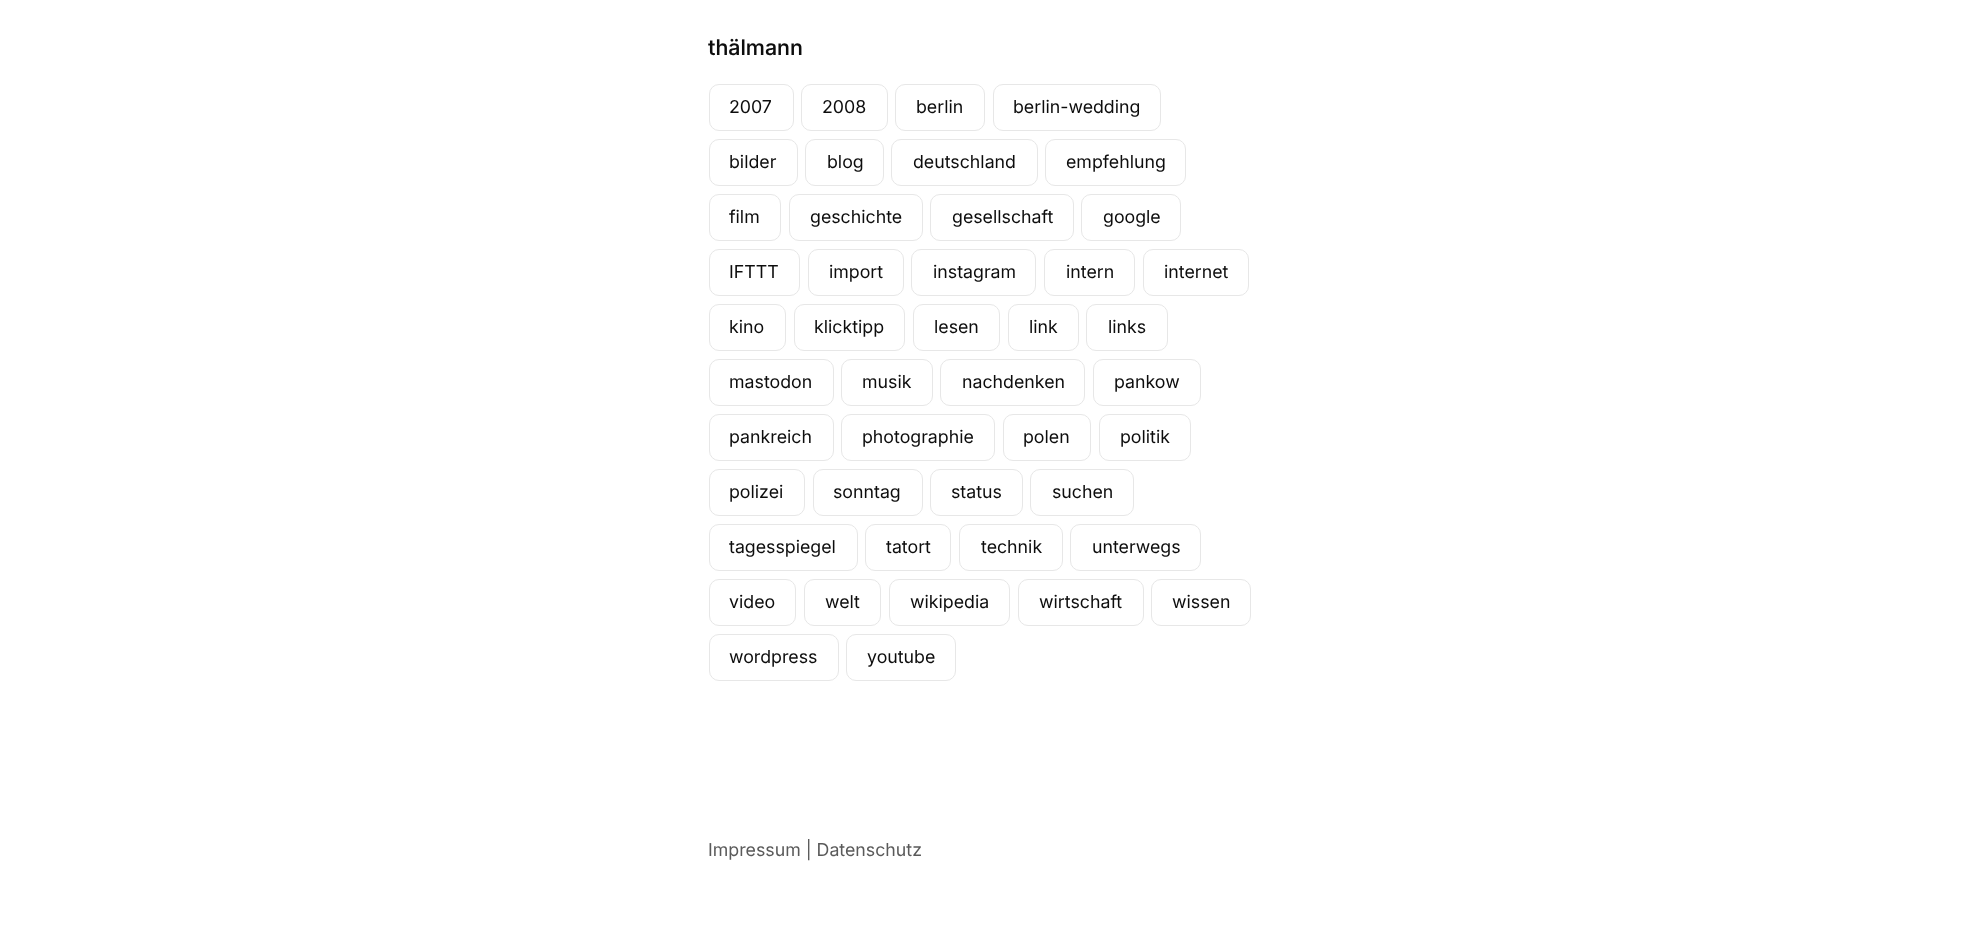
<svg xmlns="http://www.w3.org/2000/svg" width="1966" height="937">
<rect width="100%" height="100%" fill="#fff"/>
<text x="708" y="55" style="font-family:Inter;font-size:21.5px;font-weight:500;fill:#0d0d0d">thälmann</text>
<rect x="709.5" y="84.5" width="84" height="46" rx="9.5" fill="none" stroke="#e7e7e7"/>
<text x="729" y="113" style="font-family:Inter;font-size:17.75px;fill:#0d0d0d">2007</text>
<rect x="801.5" y="84.5" width="86" height="46" rx="9.5" fill="none" stroke="#e7e7e7"/>
<text x="822" y="113" style="font-family:Inter;font-size:17.75px;fill:#0d0d0d">2008</text>
<rect x="895.5" y="84.5" width="89" height="46" rx="9.5" fill="none" stroke="#e7e7e7"/>
<text x="916" y="113" style="font-family:Inter;font-size:17.75px;fill:#0d0d0d">berlin</text>
<rect x="993.5" y="84.5" width="167" height="46" rx="9.5" fill="none" stroke="#e7e7e7"/>
<text x="1013" y="113" style="font-family:Inter;font-size:17.75px;fill:#0d0d0d">berlin-wedding</text>
<rect x="709.5" y="139.5" width="88" height="46" rx="9.5" fill="none" stroke="#e7e7e7"/>
<text x="729" y="168" style="font-family:Inter;font-size:17.75px;fill:#0d0d0d">bilder</text>
<rect x="805.5" y="139.5" width="78" height="46" rx="9.5" fill="none" stroke="#e7e7e7"/>
<text x="827" y="168" style="font-family:Inter;font-size:17.75px;fill:#0d0d0d">blog</text>
<rect x="891.5" y="139.5" width="146" height="46" rx="9.5" fill="none" stroke="#e7e7e7"/>
<text x="913" y="168" style="font-family:Inter;font-size:17.75px;fill:#0d0d0d">deutschland</text>
<rect x="1045.5" y="139.5" width="140" height="46" rx="9.5" fill="none" stroke="#e7e7e7"/>
<text x="1066" y="168" style="font-family:Inter;font-size:17.75px;fill:#0d0d0d">empfehlung</text>
<rect x="709.5" y="194.5" width="71" height="46" rx="9.5" fill="none" stroke="#e7e7e7"/>
<text x="729" y="223" style="font-family:Inter;font-size:17.75px;fill:#0d0d0d">film</text>
<rect x="789.5" y="194.5" width="133" height="46" rx="9.5" fill="none" stroke="#e7e7e7"/>
<text x="810" y="223" style="font-family:Inter;font-size:17.75px;fill:#0d0d0d">geschichte</text>
<rect x="930.5" y="194.5" width="143" height="46" rx="9.5" fill="none" stroke="#e7e7e7"/>
<text x="952" y="223" style="font-family:Inter;font-size:17.75px;fill:#0d0d0d">gesellschaft</text>
<rect x="1081.5" y="194.5" width="99" height="46" rx="9.5" fill="none" stroke="#e7e7e7"/>
<text x="1103" y="223" style="font-family:Inter;font-size:17.75px;fill:#0d0d0d">google</text>
<rect x="709.5" y="249.5" width="90" height="46" rx="9.5" fill="none" stroke="#e7e7e7"/>
<text x="729" y="278" style="font-family:Inter;font-size:17.75px;fill:#0d0d0d">IFTTT</text>
<rect x="808.5" y="249.5" width="95" height="46" rx="9.5" fill="none" stroke="#e7e7e7"/>
<text x="829" y="278" style="font-family:Inter;font-size:17.75px;fill:#0d0d0d">import</text>
<rect x="911.5" y="249.5" width="124" height="46" rx="9.5" fill="none" stroke="#e7e7e7"/>
<text x="933" y="278" style="font-family:Inter;font-size:17.75px;fill:#0d0d0d">instagram</text>
<rect x="1044.5" y="249.5" width="90" height="46" rx="9.5" fill="none" stroke="#e7e7e7"/>
<text x="1066" y="278" style="font-family:Inter;font-size:17.75px;fill:#0d0d0d">intern</text>
<rect x="1143.5" y="249.5" width="105" height="46" rx="9.5" fill="none" stroke="#e7e7e7"/>
<text x="1164" y="278" style="font-family:Inter;font-size:17.75px;fill:#0d0d0d">internet</text>
<rect x="709.5" y="304.5" width="76" height="46" rx="9.5" fill="none" stroke="#e7e7e7"/>
<text x="729" y="333" style="font-family:Inter;font-size:17.75px;fill:#0d0d0d">kino</text>
<rect x="794.5" y="304.5" width="110" height="46" rx="9.5" fill="none" stroke="#e7e7e7"/>
<text x="814" y="333" style="font-family:Inter;font-size:17.75px;fill:#0d0d0d">klicktipp</text>
<rect x="913.5" y="304.5" width="86" height="46" rx="9.5" fill="none" stroke="#e7e7e7"/>
<text x="934" y="333" style="font-family:Inter;font-size:17.75px;fill:#0d0d0d">lesen</text>
<rect x="1008.5" y="304.5" width="70" height="46" rx="9.5" fill="none" stroke="#e7e7e7"/>
<text x="1029" y="333" style="font-family:Inter;font-size:17.75px;fill:#0d0d0d">link</text>
<rect x="1086.5" y="304.5" width="81" height="46" rx="9.5" fill="none" stroke="#e7e7e7"/>
<text x="1108" y="333" style="font-family:Inter;font-size:17.75px;fill:#0d0d0d">links</text>
<rect x="709.5" y="359.5" width="124" height="46" rx="9.5" fill="none" stroke="#e7e7e7"/>
<text x="729" y="388" style="font-family:Inter;font-size:17.75px;fill:#0d0d0d">mastodon</text>
<rect x="841.5" y="359.5" width="91" height="46" rx="9.5" fill="none" stroke="#e7e7e7"/>
<text x="862" y="388" style="font-family:Inter;font-size:17.75px;fill:#0d0d0d">musik</text>
<rect x="940.5" y="359.5" width="144" height="46" rx="9.5" fill="none" stroke="#e7e7e7"/>
<text x="962" y="388" style="font-family:Inter;font-size:17.75px;fill:#0d0d0d">nachdenken</text>
<rect x="1093.5" y="359.5" width="107" height="46" rx="9.5" fill="none" stroke="#e7e7e7"/>
<text x="1114" y="388" style="font-family:Inter;font-size:17.75px;fill:#0d0d0d">pankow</text>
<rect x="709.5" y="414.5" width="124" height="46" rx="9.5" fill="none" stroke="#e7e7e7"/>
<text x="729" y="443" style="font-family:Inter;font-size:17.75px;fill:#0d0d0d">pankreich</text>
<rect x="841.5" y="414.5" width="153" height="46" rx="9.5" fill="none" stroke="#e7e7e7"/>
<text x="862" y="443" style="font-family:Inter;font-size:17.75px;fill:#0d0d0d">photographie</text>
<rect x="1003.5" y="414.5" width="87" height="46" rx="9.5" fill="none" stroke="#e7e7e7"/>
<text x="1023" y="443" style="font-family:Inter;font-size:17.75px;fill:#0d0d0d">polen</text>
<rect x="1099.5" y="414.5" width="91" height="46" rx="9.5" fill="none" stroke="#e7e7e7"/>
<text x="1120" y="443" style="font-family:Inter;font-size:17.75px;fill:#0d0d0d">politik</text>
<rect x="709.5" y="469.5" width="95" height="46" rx="9.5" fill="none" stroke="#e7e7e7"/>
<text x="729" y="498" style="font-family:Inter;font-size:17.75px;fill:#0d0d0d">polizei</text>
<rect x="813.5" y="469.5" width="109" height="46" rx="9.5" fill="none" stroke="#e7e7e7"/>
<text x="833" y="498" style="font-family:Inter;font-size:17.75px;fill:#0d0d0d">sonntag</text>
<rect x="930.5" y="469.5" width="92" height="46" rx="9.5" fill="none" stroke="#e7e7e7"/>
<text x="951" y="498" style="font-family:Inter;font-size:17.75px;fill:#0d0d0d">status</text>
<rect x="1030.5" y="469.5" width="103" height="46" rx="9.5" fill="none" stroke="#e7e7e7"/>
<text x="1052" y="498" style="font-family:Inter;font-size:17.75px;fill:#0d0d0d">suchen</text>
<rect x="709.5" y="524.5" width="148" height="46" rx="9.5" fill="none" stroke="#e7e7e7"/>
<text x="729" y="553" style="font-family:Inter;font-size:17.75px;fill:#0d0d0d">tagesspiegel</text>
<rect x="865.5" y="524.5" width="85" height="46" rx="9.5" fill="none" stroke="#e7e7e7"/>
<text x="886" y="553" style="font-family:Inter;font-size:17.75px;fill:#0d0d0d">tatort</text>
<rect x="959.5" y="524.5" width="103" height="46" rx="9.5" fill="none" stroke="#e7e7e7"/>
<text x="981" y="553" style="font-family:Inter;font-size:17.75px;fill:#0d0d0d">technik</text>
<rect x="1070.5" y="524.5" width="130" height="46" rx="9.5" fill="none" stroke="#e7e7e7"/>
<text x="1092" y="553" style="font-family:Inter;font-size:17.75px;fill:#0d0d0d">unterwegs</text>
<rect x="709.5" y="579.5" width="86" height="46" rx="9.5" fill="none" stroke="#e7e7e7"/>
<text x="729" y="608" style="font-family:Inter;font-size:17.75px;fill:#0d0d0d">video</text>
<rect x="804.5" y="579.5" width="76" height="46" rx="9.5" fill="none" stroke="#e7e7e7"/>
<text x="825" y="608" style="font-family:Inter;font-size:17.75px;fill:#0d0d0d">welt</text>
<rect x="889.5" y="579.5" width="120" height="46" rx="9.5" fill="none" stroke="#e7e7e7"/>
<text x="910" y="608" style="font-family:Inter;font-size:17.75px;fill:#0d0d0d">wikipedia</text>
<rect x="1018.5" y="579.5" width="125" height="46" rx="9.5" fill="none" stroke="#e7e7e7"/>
<text x="1039" y="608" style="font-family:Inter;font-size:17.75px;fill:#0d0d0d">wirtschaft</text>
<rect x="1151.5" y="579.5" width="99" height="46" rx="9.5" fill="none" stroke="#e7e7e7"/>
<text x="1172" y="608" style="font-family:Inter;font-size:17.75px;fill:#0d0d0d">wissen</text>
<rect x="709.5" y="634.5" width="129" height="46" rx="9.5" fill="none" stroke="#e7e7e7"/>
<text x="729" y="663" style="font-family:Inter;font-size:17.75px;fill:#0d0d0d">wordpress</text>
<rect x="846.5" y="634.5" width="109" height="46" rx="9.5" fill="none" stroke="#e7e7e7"/>
<text x="867" y="663" style="font-family:Inter;font-size:17.75px;fill:#0d0d0d">youtube</text>
<text x="708" y="856" style="font-family:Inter;font-size:17.75px;fill:#5a5a5a">Impressum | Datenschutz</text>
</svg>
